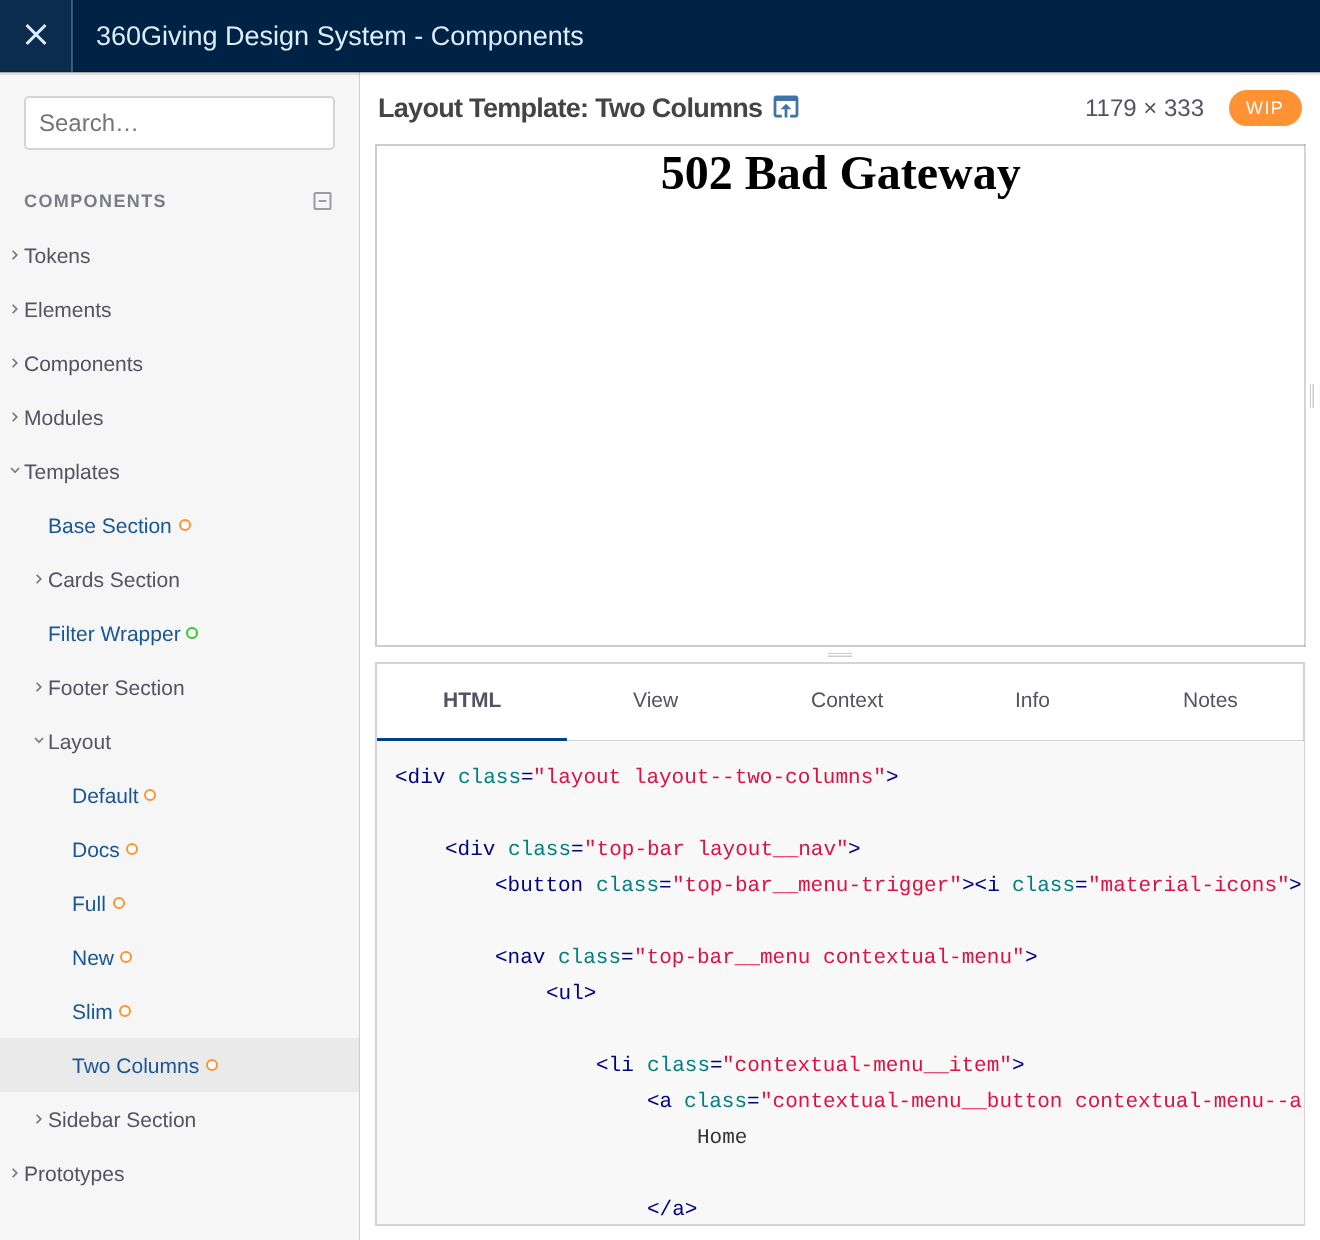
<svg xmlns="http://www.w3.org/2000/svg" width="1320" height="1240">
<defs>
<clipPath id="clip1"><rect x="1310" y="384" width="5" height="24"/></clipPath>
<clipPath id="clip2"><rect x="828" y="653" width="24" height="5"/></clipPath>
</defs>
<rect width="100%" height="100%" fill="#fff"/>
<rect x="360" y="73" width="960" height="2" fill="#e6e6e6"/>
<rect x="360" y="72" width="960" height="1" fill="#adadad"/>
<rect x="73" width="1247" height="71" fill="#024"/>
<rect x="72" width="1" height="72" fill="#375573"/>
<rect width="71" height="71" fill="#0b2c4d"/>
<rect x="71" width="1" height="72" fill="#405d7a"/>
<rect x="73" y="71" width="1247" height="1" fill="#001a33"/>
<rect x="71" y="71" width="2" height="1" fill="#374f66"/>
<rect y="71" width="72" height="1" fill="#0b253d"/>
<rect x="71" y="71" width="1" height="1" fill="#40576e"/>
<image x="25" y="24" width="22" height="21" href="media/1.png"/>
<text x="96" y="45" style="font-family:Liberation Sans;font-size:27px;fill:#def">360Giving Design System - Components</text>
<rect y="75" width="359" height="1165" fill="#f6f6f6"/>
<rect y="73" width="360" height="2" fill="#ddd"/>
<rect y="72" width="360" height="1" fill="#a6a6a6"/>
<rect x="359" y="72" width="1" height="1168" fill="#cdcdd1"/>
<rect x="359" y="72" width="1" height="3" fill="#b9b9bc"/>
<rect x="359" y="72" width="1" height="1" fill="#8b8b8d"/>
<rect x="24" y="96" width="311" height="54" rx="5" fill="#fff"/>
<rect x="25" y="97" width="309" height="52" rx="4" fill="none" stroke="#53536340" stroke-width="2"/>
<text x="39" y="131" style="font-family:Liberation Sans;font-size:24px;fill:#757575">Search…</text>
<text x="24" y="207" style="font-family:Liberation Sans;font-size:18px;font-weight:bold;letter-spacing:1.4px;fill:#7c7c88">COMPONENTS</text>
<image x="313" y="192" width="19" height="18" href="media/2.png"/>
<image x="12" y="250" width="6" height="10" href="media/3.png"/>
<text x="24" y="263" style="font-family:Liberation Sans;font-size:21px;fill:#535363">Tokens</text>
<image x="12" y="304" width="6" height="10" href="media/3.png"/>
<text x="24" y="317" style="font-family:Liberation Sans;font-size:21px;fill:#535363">Elements</text>
<image x="12" y="358" width="6" height="10" href="media/3.png"/>
<text x="24" y="371" style="font-family:Liberation Sans;font-size:21px;fill:#535363">Components</text>
<image x="12" y="412" width="6" height="10" href="media/3.png"/>
<text x="24" y="425" style="font-family:Liberation Sans;font-size:21px;fill:#535363">Modules</text>
<image x="10" y="467" width="10" height="7" href="media/4.png"/>
<text x="24" y="479" style="font-family:Liberation Sans;font-size:21px;fill:#535363">Templates</text>
<text x="48" y="533" style="font-family:Liberation Sans;font-size:21px;fill:#195693">Base Section</text>
<circle cx="185" cy="525" r="5" fill="#fff" stroke="#ff9233" stroke-width="2"/>
<image x="36" y="574" width="6" height="10" href="media/3.png"/>
<text x="48" y="587" style="font-family:Liberation Sans;font-size:21px;fill:#535363">Cards Section</text>
<text x="48" y="641" style="font-family:Liberation Sans;font-size:21px;fill:#195693">Filter Wrapper</text>
<circle cx="192" cy="633" r="5" fill="#fff" stroke="#29cc29" stroke-width="2"/>
<image x="36" y="682" width="6" height="10" href="media/3.png"/>
<text x="48" y="695" style="font-family:Liberation Sans;font-size:21px;fill:#535363">Footer Section</text>
<image x="34" y="737" width="10" height="7" href="media/4.png"/>
<text x="48" y="749" style="font-family:Liberation Sans;font-size:21px;fill:#535363">Layout</text>
<text x="72" y="803" style="font-family:Liberation Sans;font-size:21px;fill:#195693">Default</text>
<circle cx="150" cy="795" r="5" fill="#fff" stroke="#ff9233" stroke-width="2"/>
<text x="72" y="857" style="font-family:Liberation Sans;font-size:21px;fill:#195693">Docs</text>
<circle cx="132" cy="849" r="5" fill="#fff" stroke="#ff9233" stroke-width="2"/>
<text x="72" y="911" style="font-family:Liberation Sans;font-size:21px;fill:#195693">Full</text>
<circle cx="119" cy="903" r="5" fill="#fff" stroke="#ff9233" stroke-width="2"/>
<text x="72" y="965" style="font-family:Liberation Sans;font-size:21px;fill:#195693">New</text>
<circle cx="126" cy="957" r="5" fill="#fff" stroke="#ff9233" stroke-width="2"/>
<text x="72" y="1019" style="font-family:Liberation Sans;font-size:21px;fill:#195693">Slim</text>
<circle cx="125" cy="1011" r="5" fill="#fff" stroke="#ff9233" stroke-width="2"/>
<rect y="1038" width="359" height="54" fill="#eaeaeb"/>
<text x="72" y="1073" style="font-family:Liberation Sans;font-size:21px;fill:#195693">Two Columns</text>
<circle cx="212" cy="1065" r="5" fill="#fff" stroke="#ff9233" stroke-width="2"/>
<image x="36" y="1114" width="6" height="10" href="media/3.png"/>
<text x="48" y="1127" style="font-family:Liberation Sans;font-size:21px;fill:#535363">Sidebar Section</text>
<image x="12" y="1168" width="6" height="10" href="media/3.png"/>
<text x="24" y="1181" style="font-family:Liberation Sans;font-size:21px;fill:#535363">Prototypes</text>
<text x="378" y="117" style="font-family:Liberation Sans;font-size:27px;font-weight:bold;letter-spacing:-0.7px;fill:#444">Layout Template: Two Columns</text>
<image x="773" y="95" width="26" height="23" href="media/5.png"/>
<text x="1085" y="116" style="font-family:Liberation Sans;font-size:24px;fill:#535363">1179 × 333</text>
<rect x="1229" y="90" width="73" height="36" rx="18" fill="#ff9233"/>
<text x="1246" y="114" style="font-family:Liberation Sans;font-size:18px;letter-spacing:1.4px;fill:#fff">WIP</text>
<rect x="376" y="145" width="928" height="501" fill="none" stroke="#cdcdd1" stroke-width="2"/>
<rect x="1303" y="146" width="2" height="499" fill="#fff"/>
<image x="662" y="155" width="359" height="44" href="media/6.png"/>
<g clip-path="url(#clip1)">
<path d="M1312.5 384h1.5v24h-1.5zm-3 0h1.5v24h-1.5z" fill="#ccc" fill-rule="evenodd"/>
</g>
<rect x="1304" y="144" width="2" height="503" fill="#53536340"/>
<g clip-path="url(#clip2)">
<path d="M852 655.5v1.5h-24v-1.5zm0-3v1.5h-24v-1.5z" fill="#ccc" fill-rule="evenodd"/>
</g>
<rect x="376" y="663" width="928" height="562" fill="none" stroke="#d4d4d8" stroke-width="2"/>
<rect x="567" y="740" width="737" height="1" fill="#53536340"/>
<rect x="377" y="738" width="190" height="3" fill="#048"/>
<text x="443" y="707" style="font-family:Liberation Sans;font-size:21px;font-weight:bold;fill:#535363">HTML</text>
<text x="633" y="707" style="font-family:Liberation Sans;font-size:21px;fill:#535363">View</text>
<text x="811" y="707" style="font-family:Liberation Sans;font-size:21px;fill:#535363">Context</text>
<text x="1015" y="707" style="font-family:Liberation Sans;font-size:21px;fill:#535363">Info</text>
<text x="1183" y="707" style="font-family:Liberation Sans;font-size:21px;fill:#535363">Notes</text>
<rect x="377" y="741" width="927" height="483" fill="#f8f8f8"/>
<text x="395" y="783" style="font-family:Liberation Mono;font-size:21px;fill:#000080">&lt;div</text>
<text x="458" y="783" style="font-family:Liberation Mono;font-size:21px;fill:#008080">class</text>
<text x="521" y="783" style="font-family:Liberation Mono;font-size:21px;fill:#000080">=</text>
<text x="533" y="783" style="font-family:Liberation Mono;font-size:21px;fill:#d14">"layout layout--two-columns"</text>
<text x="886" y="783" style="font-family:Liberation Mono;font-size:21px;fill:#000080">&gt;</text>
<text x="445" y="855" style="font-family:Liberation Mono;font-size:21px;fill:#000080">&lt;div</text>
<text x="508" y="855" style="font-family:Liberation Mono;font-size:21px;fill:#008080">class</text>
<text x="571" y="855" style="font-family:Liberation Mono;font-size:21px;fill:#000080">=</text>
<text x="584" y="855" style="font-family:Liberation Mono;font-size:21px;fill:#d14">"top-bar layout__nav"</text>
<text x="848" y="855" style="font-family:Liberation Mono;font-size:21px;fill:#000080">&gt;</text>
<text x="495" y="891" style="font-family:Liberation Mono;font-size:21px;fill:#000080">&lt;button</text>
<text x="596" y="891" style="font-family:Liberation Mono;font-size:21px;fill:#008080">class</text>
<text x="659" y="891" style="font-family:Liberation Mono;font-size:21px;fill:#000080">=</text>
<text x="672" y="891" style="font-family:Liberation Mono;font-size:21px;fill:#d14">"top-bar__menu-trigger"</text>
<text x="962" y="891" style="font-family:Liberation Mono;font-size:21px;fill:#000080">&gt;&lt;i</text>
<text x="1012" y="891" style="font-family:Liberation Mono;font-size:21px;fill:#008080">class</text>
<text x="1075" y="891" style="font-family:Liberation Mono;font-size:21px;fill:#000080">=</text>
<text x="1088" y="891" style="font-family:Liberation Mono;font-size:21px;fill:#d14">"material-icons"</text>
<text x="1289" y="891" style="font-family:Liberation Mono;font-size:21px;fill:#000080">&gt;</text>
<text x="495" y="963" style="font-family:Liberation Mono;font-size:21px;fill:#000080">&lt;nav</text>
<text x="558" y="963" style="font-family:Liberation Mono;font-size:21px;fill:#008080">class</text>
<text x="621" y="963" style="font-family:Liberation Mono;font-size:21px;fill:#000080">=</text>
<text x="634" y="963" style="font-family:Liberation Mono;font-size:21px;fill:#d14">"top-bar__menu contextual-menu"</text>
<text x="1025" y="963" style="font-family:Liberation Mono;font-size:21px;fill:#000080">&gt;</text>
<text x="546" y="999" style="font-family:Liberation Mono;font-size:21px;fill:#000080">&lt;ul&gt;</text>
<text x="596" y="1071" style="font-family:Liberation Mono;font-size:21px;fill:#000080">&lt;li</text>
<text x="647" y="1071" style="font-family:Liberation Mono;font-size:21px;fill:#008080">class</text>
<text x="710" y="1071" style="font-family:Liberation Mono;font-size:21px;fill:#000080">=</text>
<text x="722" y="1071" style="font-family:Liberation Mono;font-size:21px;fill:#d14">"contextual-menu__item"</text>
<text x="1012" y="1071" style="font-family:Liberation Mono;font-size:21px;fill:#000080">&gt;</text>
<text x="647" y="1107" style="font-family:Liberation Mono;font-size:21px;fill:#000080">&lt;a</text>
<text x="684" y="1107" style="font-family:Liberation Mono;font-size:21px;fill:#008080">class</text>
<text x="747" y="1107" style="font-family:Liberation Mono;font-size:21px;fill:#000080">=</text>
<text x="760" y="1107" style="font-family:Liberation Mono;font-size:21px;fill:#d14">"contextual-menu__button contextual-menu--a</text>
<text x="697" y="1143" style="font-family:Liberation Mono;font-size:21px;fill:#333">Home</text>
<text x="647" y="1215" style="font-family:Liberation Mono;font-size:21px;fill:#000080">&lt;/a&gt;</text>
</svg>
